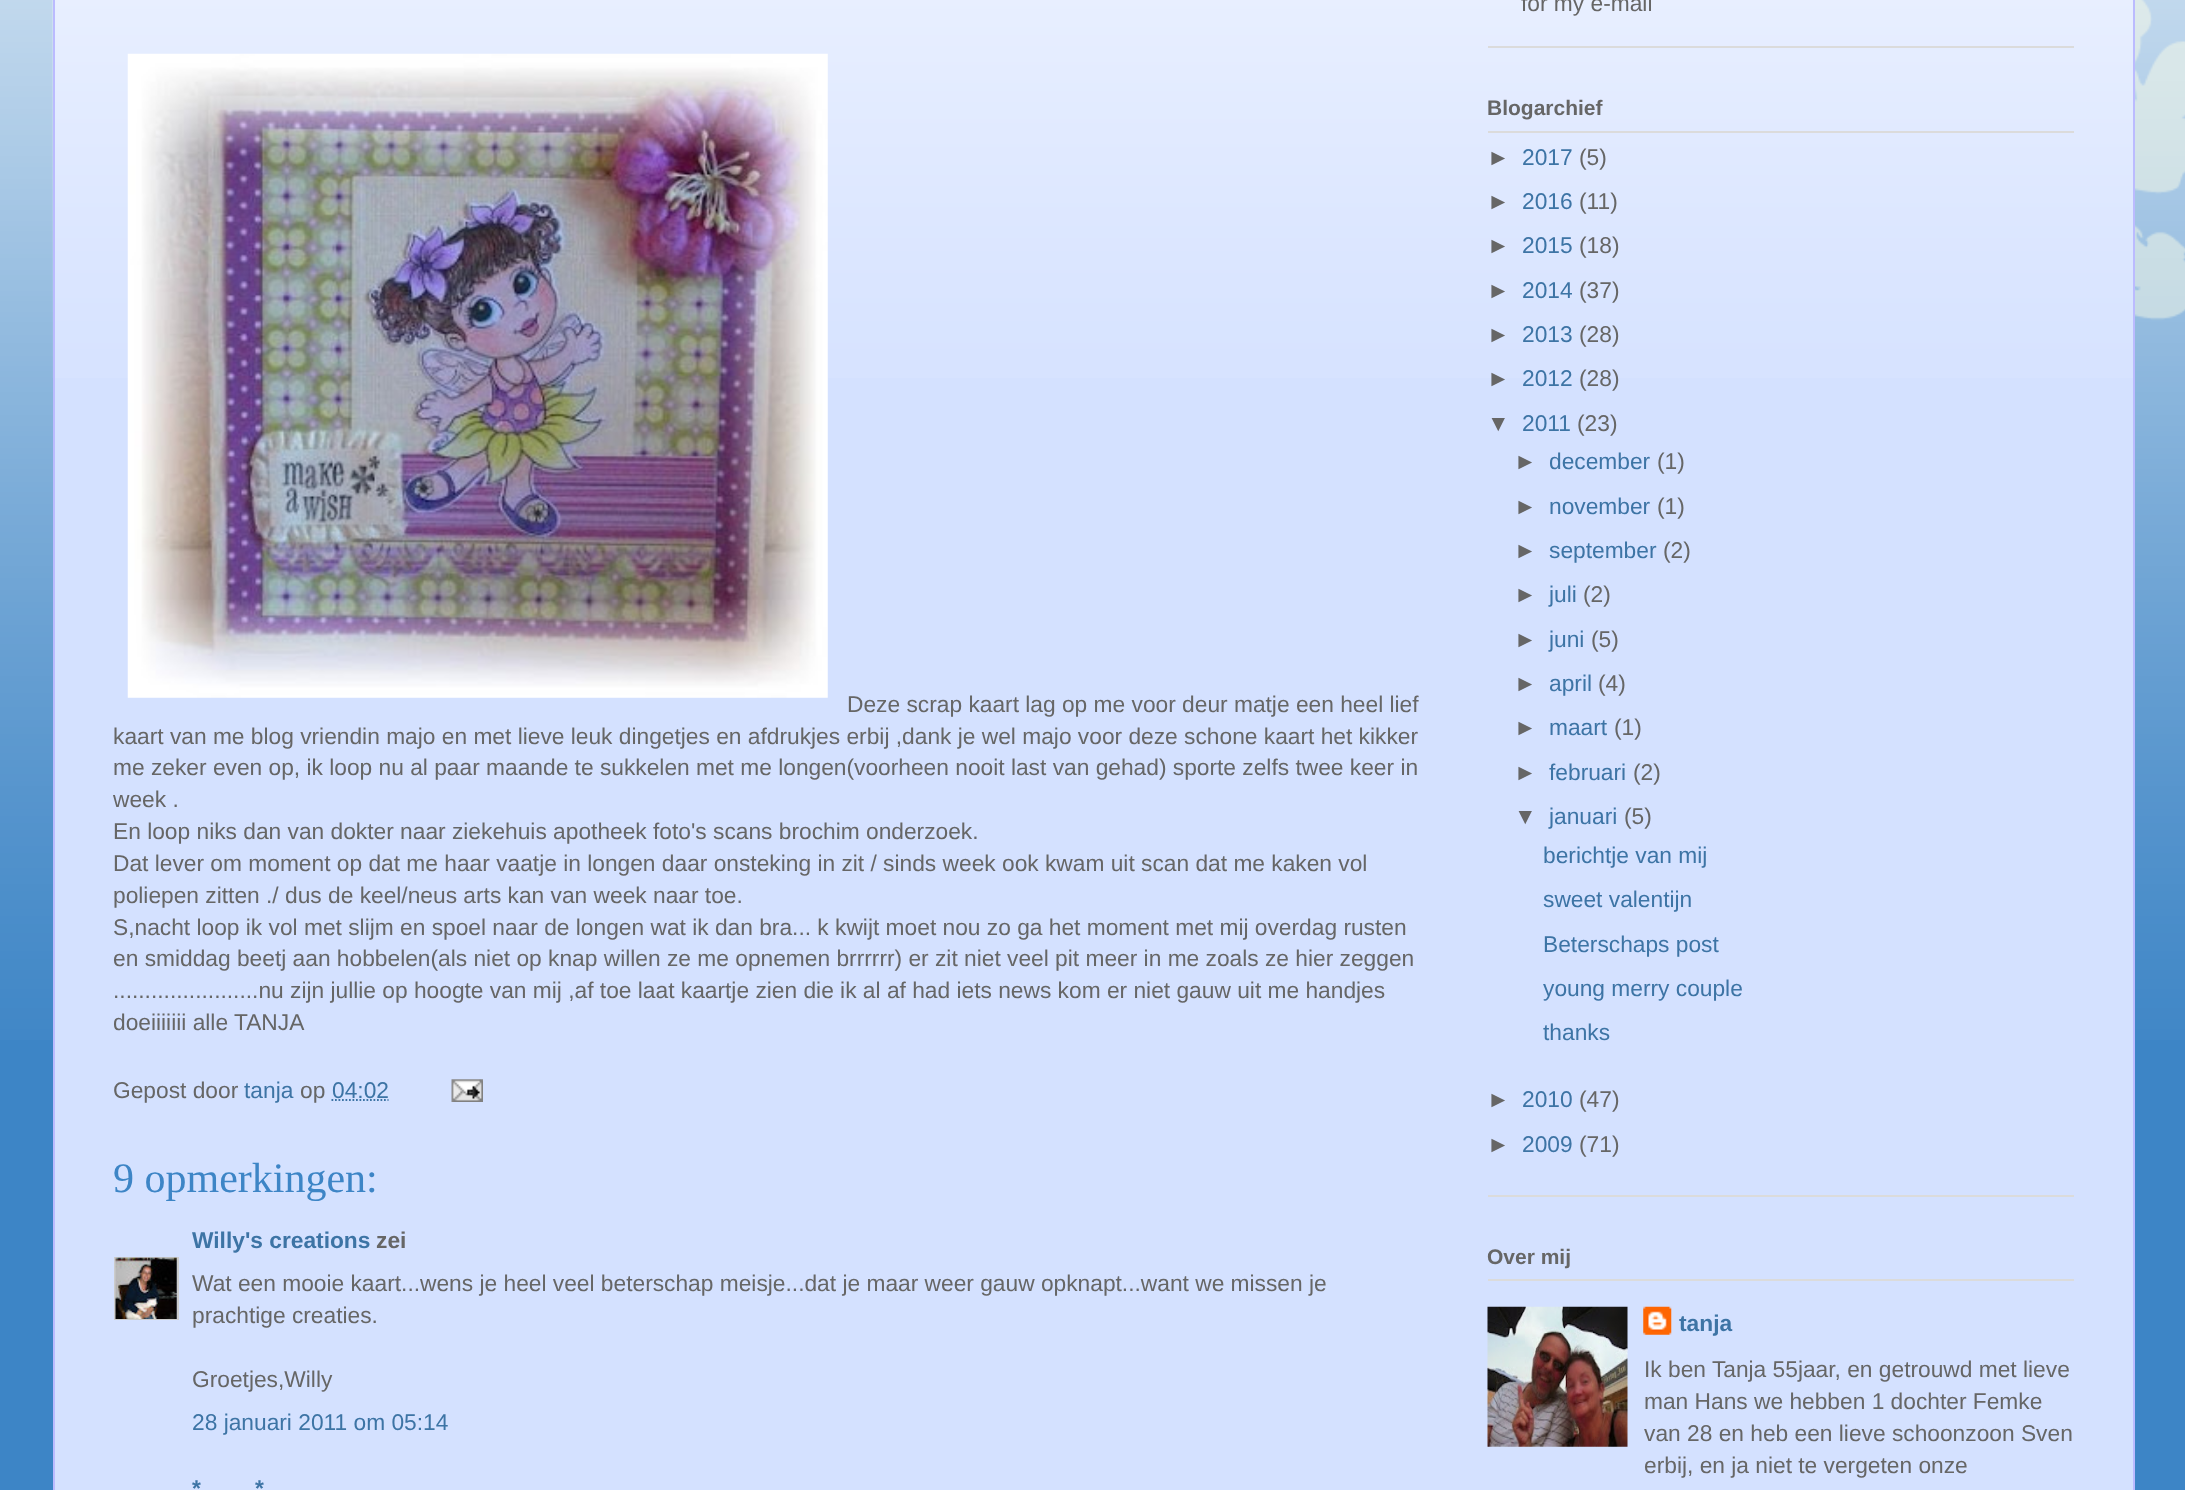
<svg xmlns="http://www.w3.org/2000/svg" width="2185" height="1490">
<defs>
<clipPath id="clip1"><rect x="114" y="1257" width="65" height="63"/></clipPath>
</defs>
<rect width="100%" height="100%" fill="#3d85c6"/>
<image x="0" y="0" width="2185" height="1040" href="media/1.png"/>
<rect x="55" width="2078" height="1490" fill="#d4e1ff"/>
<image x="52" y="0" width="2081" height="378" href="media/2.png"/>
<rect x="2133" width="2" height="1490" fill="#bbf"/>
<rect x="53" width="2" height="1490" fill="#bbf"/>
<image x="127" y="53" width="701" height="645" href="media/3.png"/>
<text x="847" y="712" style="font-family:Liberation Sans;font-size:22.75px;fill:#666">Deze scrap kaart lag op me voor deur matje een heel lief</text>
<text x="113" y="744" style="font-family:Liberation Sans;font-size:22.75px;fill:#666">kaart van me blog vriendin majo en met lieve leuk dingetjes en afdrukjes erbij ,dank je wel majo voor deze schone kaart het kikker</text>
<text x="113" y="775" style="font-family:Liberation Sans;font-size:22.75px;fill:#666">me zeker even op, ik loop nu al paar maande te sukkelen met me longen(voorheen nooit last van gehad) sporte zelfs twee keer in</text>
<text x="113" y="807" style="font-family:Liberation Sans;font-size:22.75px;fill:#666">week .</text>
<text x="113" y="839" style="font-family:Liberation Sans;font-size:22.75px;fill:#666">En loop niks dan van dokter naar ziekehuis apotheek foto's scans brochim onderzoek.</text>
<text x="113" y="871" style="font-family:Liberation Sans;font-size:22.75px;fill:#666">Dat lever om moment op dat me haar vaatje in longen daar onsteking in zit / sinds week ook kwam uit scan dat me kaken vol</text>
<text x="113" y="903" style="font-family:Liberation Sans;font-size:22.75px;fill:#666">poliepen zitten ./ dus de keel/neus arts kan van week naar toe.</text>
<text x="113" y="935" style="font-family:Liberation Sans;font-size:22.75px;fill:#666">S,nacht loop ik vol met slijm en spoel naar de longen wat ik dan bra... k kwijt moet nou zo ga het moment met mij overdag rusten</text>
<text x="113" y="966" style="font-family:Liberation Sans;font-size:22.75px;fill:#666">en smiddag beetj aan hobbelen(als niet op knap willen ze me opnemen brrrrrr) er zit niet veel pit meer in me zoals ze hier zeggen</text>
<text x="113" y="998" style="font-family:Liberation Sans;font-size:22.75px;fill:#666">.......................nu zijn jullie op hoogte van mij ,af toe laat kaartje zien die ik al af had iets news kom er niet gauw uit me handjes</text>
<text x="113" y="1030" style="font-family:Liberation Sans;font-size:22.75px;fill:#666">doeiiiiiii alle TANJA</text>
<text x="113" y="1098" style="font-family:Liberation Sans;font-size:22.75px;fill:#666">Gepost door</text>
<text x="244" y="1098" style="font-family:Liberation Sans;font-size:22.75px;fill:#3d74a5">tanja</text>
<text x="300" y="1098" style="font-family:Liberation Sans;font-size:22.75px;fill:#666">op</text>
<path d="M331.5 1100h57" fill="none" stroke="#3d74a5" stroke-width="1.8" stroke-dasharray="1.75 1.75"/>
<text x="332" y="1098" style="font-family:Liberation Sans;font-size:22.75px;fill:#3d74a5">04:02</text>
<image x="451" y="1079" width="32" height="23" href="media/4.png"/>
<text x="113" y="1192" style="font-family:Liberation Serif;font-size:42px;fill:#3d85c6">9 opmerkingen:</text>
<text x="192" y="1248" style="font-family:Liberation Sans;font-size:22.75px;font-weight:bold;fill:#3d74a5">Willy's creations</text>
<text x="376" y="1248" style="font-family:Liberation Sans;font-size:22.75px;font-weight:bold;fill:#666">zei</text>
<g clip-path="url(#clip1)">
<rect x="115" y="1258" width="63" height="62" fill="none" stroke="#ccc" stroke-width="2"/>
</g>
<image x="115" y="1257" width="62" height="62" href="media/5.png"/>
<text x="192" y="1291" style="font-family:Liberation Sans;font-size:22.75px;fill:#666">Wat een mooie kaart...wens je heel veel beterschap meisje...dat je maar weer gauw opknapt...want we missen je</text>
<text x="192" y="1323" style="font-family:Liberation Sans;font-size:22.75px;fill:#666">prachtige creaties.</text>
<text x="192" y="1387" style="font-family:Liberation Sans;font-size:22.75px;fill:#666">Groetjes,Willy</text>
<text x="192" y="1430" style="font-family:Liberation Sans;font-size:22.75px;fill:#3d74a5">28 januari 2011 om 05:14</text>
<text x="192" y="1496" style="font-family:Liberation Sans;font-size:22.75px;font-weight:bold;fill:#3d74a5">*</text>
<text x="255" y="1496" style="font-family:Liberation Sans;font-size:22.75px;font-weight:bold;fill:#3d74a5">*</text>
<rect x="1488" y="46" width="586" height="2" fill="#dbdbdb"/>
<text x="1521" y="11" style="font-family:Liberation Sans;font-size:22.75px;fill:#666">for my e-mail</text>
<rect x="1488" y="1195" width="586" height="2" fill="#dbdbdb"/>
<rect x="1488" y="131" width="586" height="2" fill="#dbdbdb"/>
<text x="1487" y="115" style="font-family:Liberation Sans;font-size:21px;font-weight:bold;fill:#666">Blogarchief</text>
<text x="1487" y="165" style="font-family:Liberation Sans;font-size:22.75px;fill:#666">►</text>
<text x="1522" y="165" style="font-family:Liberation Sans;font-size:22.75px;fill:#3d74a5">2017</text>
<text x="1579" y="165" style="font-family:Liberation Sans;font-size:22.75px;fill:#666">(5)</text>
<text x="1487" y="209" style="font-family:Liberation Sans;font-size:22.75px;fill:#666">►</text>
<text x="1522" y="209" style="font-family:Liberation Sans;font-size:22.75px;fill:#3d74a5">2016</text>
<text x="1579" y="209" style="font-family:Liberation Sans;font-size:22.75px;fill:#666">(11)</text>
<text x="1487" y="253" style="font-family:Liberation Sans;font-size:22.75px;fill:#666">►</text>
<text x="1522" y="253" style="font-family:Liberation Sans;font-size:22.75px;fill:#3d74a5">2015</text>
<text x="1579" y="253" style="font-family:Liberation Sans;font-size:22.75px;fill:#666">(18)</text>
<text x="1487" y="298" style="font-family:Liberation Sans;font-size:22.75px;fill:#666">►</text>
<text x="1522" y="298" style="font-family:Liberation Sans;font-size:22.75px;fill:#3d74a5">2014</text>
<text x="1579" y="298" style="font-family:Liberation Sans;font-size:22.75px;fill:#666">(37)</text>
<text x="1487" y="342" style="font-family:Liberation Sans;font-size:22.75px;fill:#666">►</text>
<text x="1522" y="342" style="font-family:Liberation Sans;font-size:22.75px;fill:#3d74a5">2013</text>
<text x="1579" y="342" style="font-family:Liberation Sans;font-size:22.75px;fill:#666">(28)</text>
<text x="1487" y="386" style="font-family:Liberation Sans;font-size:22.75px;fill:#666">►</text>
<text x="1522" y="386" style="font-family:Liberation Sans;font-size:22.75px;fill:#3d74a5">2012</text>
<text x="1579" y="386" style="font-family:Liberation Sans;font-size:22.75px;fill:#666">(28)</text>
<text x="1487" y="431" style="font-family:Liberation Sans;font-size:22.75px;fill:#666">▼</text>
<text x="1522" y="431" style="font-family:Liberation Sans;font-size:22.75px;fill:#3d74a5">2011</text>
<text x="1577" y="431" style="font-family:Liberation Sans;font-size:22.75px;fill:#666">(23)</text>
<text x="1514" y="469" style="font-family:Liberation Sans;font-size:22.75px;fill:#666">►</text>
<text x="1549" y="469" style="font-family:Liberation Sans;font-size:22.75px;fill:#3d74a5">december</text>
<text x="1657" y="469" style="font-family:Liberation Sans;font-size:22.75px;fill:#666">(1)</text>
<text x="1514" y="514" style="font-family:Liberation Sans;font-size:22.75px;fill:#666">►</text>
<text x="1549" y="514" style="font-family:Liberation Sans;font-size:22.75px;fill:#3d74a5">november</text>
<text x="1657" y="514" style="font-family:Liberation Sans;font-size:22.75px;fill:#666">(1)</text>
<text x="1514" y="558" style="font-family:Liberation Sans;font-size:22.75px;fill:#666">►</text>
<text x="1549" y="558" style="font-family:Liberation Sans;font-size:22.75px;fill:#3d74a5">september</text>
<text x="1663" y="558" style="font-family:Liberation Sans;font-size:22.75px;fill:#666">(2)</text>
<text x="1514" y="602" style="font-family:Liberation Sans;font-size:22.75px;fill:#666">►</text>
<text x="1549" y="602" style="font-family:Liberation Sans;font-size:22.75px;fill:#3d74a5">juli</text>
<text x="1583" y="602" style="font-family:Liberation Sans;font-size:22.75px;fill:#666">(2)</text>
<text x="1514" y="647" style="font-family:Liberation Sans;font-size:22.75px;fill:#666">►</text>
<text x="1549" y="647" style="font-family:Liberation Sans;font-size:22.75px;fill:#3d74a5">juni</text>
<text x="1591" y="647" style="font-family:Liberation Sans;font-size:22.75px;fill:#666">(5)</text>
<text x="1514" y="691" style="font-family:Liberation Sans;font-size:22.75px;fill:#666">►</text>
<text x="1549" y="691" style="font-family:Liberation Sans;font-size:22.75px;fill:#3d74a5">april</text>
<text x="1598" y="691" style="font-family:Liberation Sans;font-size:22.75px;fill:#666">(4)</text>
<text x="1514" y="735" style="font-family:Liberation Sans;font-size:22.75px;fill:#666">►</text>
<text x="1549" y="735" style="font-family:Liberation Sans;font-size:22.75px;fill:#3d74a5">maart</text>
<text x="1614" y="735" style="font-family:Liberation Sans;font-size:22.75px;fill:#666">(1)</text>
<text x="1514" y="780" style="font-family:Liberation Sans;font-size:22.75px;fill:#666">►</text>
<text x="1549" y="780" style="font-family:Liberation Sans;font-size:22.75px;fill:#3d74a5">februari</text>
<text x="1633" y="780" style="font-family:Liberation Sans;font-size:22.75px;fill:#666">(2)</text>
<text x="1514" y="824" style="font-family:Liberation Sans;font-size:22.75px;fill:#666">▼</text>
<text x="1549" y="824" style="font-family:Liberation Sans;font-size:22.75px;fill:#3d74a5">januari</text>
<text x="1624" y="824" style="font-family:Liberation Sans;font-size:22.75px;fill:#666">(5)</text>
<text x="1543" y="863" style="font-family:Liberation Sans;font-size:22.75px;fill:#3d74a5">berichtje van mij</text>
<text x="1543" y="907" style="font-family:Liberation Sans;font-size:22.75px;fill:#3d74a5">sweet valentijn</text>
<text x="1543" y="952" style="font-family:Liberation Sans;font-size:22.75px;fill:#3d74a5">Beterschaps post</text>
<text x="1543" y="996" style="font-family:Liberation Sans;font-size:22.75px;fill:#3d74a5">young merry couple</text>
<text x="1543" y="1040" style="font-family:Liberation Sans;font-size:22.75px;fill:#3d74a5">thanks</text>
<text x="1487" y="1107" style="font-family:Liberation Sans;font-size:22.75px;fill:#666">►</text>
<text x="1522" y="1107" style="font-family:Liberation Sans;font-size:22.75px;fill:#3d74a5">2010</text>
<text x="1579" y="1107" style="font-family:Liberation Sans;font-size:22.75px;fill:#666">(47)</text>
<text x="1487" y="1152" style="font-family:Liberation Sans;font-size:22.75px;fill:#666">►</text>
<text x="1522" y="1152" style="font-family:Liberation Sans;font-size:22.75px;fill:#3d74a5">2009</text>
<text x="1579" y="1152" style="font-family:Liberation Sans;font-size:22.75px;fill:#666">(71)</text>
<rect x="1488" y="1279" width="586" height="2" fill="#dbdbdb"/>
<text x="1487" y="1264" style="font-family:Liberation Sans;font-size:21px;font-weight:bold;fill:#666">Over mij</text>
<image x="1487" y="1306" width="141" height="141" href="media/6.png"/>
<image x="1643" y="1306" width="29" height="29" href="media/7.png"/>
<text x="1679" y="1331" style="font-family:Liberation Sans;font-size:22.75px;font-weight:bold;fill:#3d74a5">tanja</text>
<text x="1644" y="1377" style="font-family:Liberation Sans;font-size:22.75px;fill:#666">Ik ben Tanja 55jaar, en getrouwd met lieve</text>
<text x="1644" y="1409" style="font-family:Liberation Sans;font-size:22.75px;fill:#666">man Hans we hebben 1 dochter Femke</text>
<text x="1644" y="1441" style="font-family:Liberation Sans;font-size:22.75px;fill:#666">van 28 en heb een lieve schoonzoon Sven</text>
<text x="1644" y="1473" style="font-family:Liberation Sans;font-size:22.75px;fill:#666">erbij, en ja niet te vergeten onze</text>
</svg>
